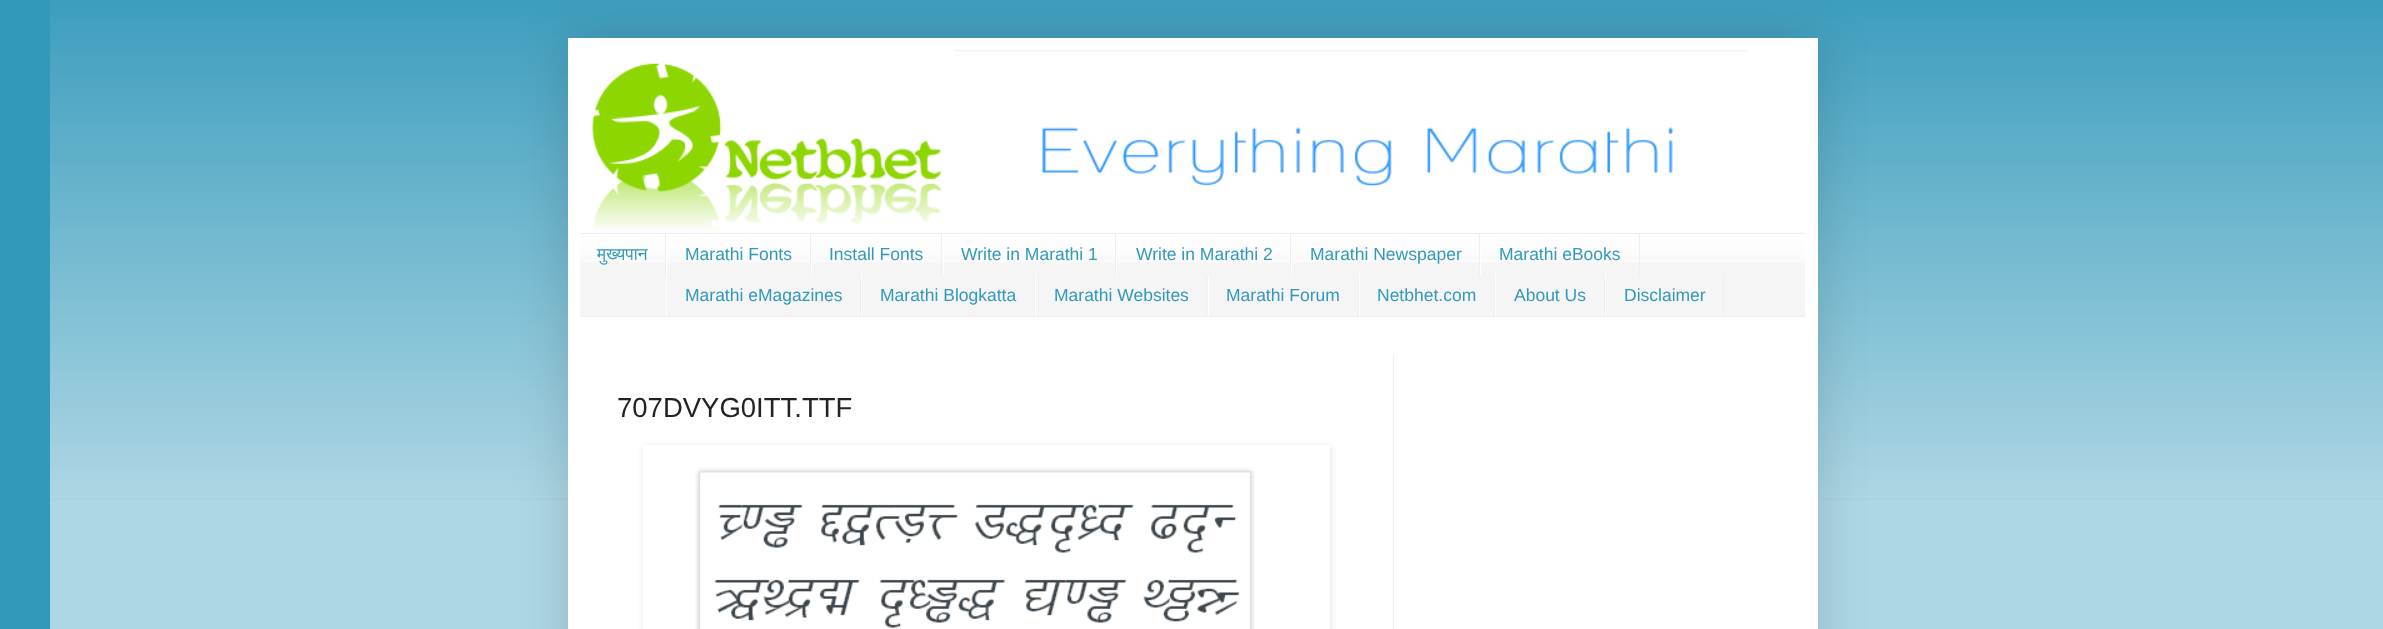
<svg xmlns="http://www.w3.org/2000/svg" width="2383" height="629">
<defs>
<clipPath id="clip1"><path d="M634 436h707v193h-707zm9 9h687v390h-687z" clip-rule="evenodd"/></clipPath>
</defs>
<rect width="100%" height="100%" fill="#39b"/>
<image x="50" y="0" width="2333" height="500" href="media/1.png"/>
<rect x="50" y="500" width="2333" height="129" fill="#aed7e5"/>
<rect x="568" y="38" width="1250" height="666" fill="#00000026" filter="blur(25px)"/>
<rect x="568" y="38" width="1250" height="591" fill="#fff"/>
<image x="592" y="50" width="1156" height="181" href="media/2.png"/>
<rect x="580" y="235" width="1225" height="81" fill="#f5f5f5"/>
<image x="580" y="234" width="1225" height="29" href="media/3.png"/>
<rect x="580" y="233" width="1225" height="1" fill="#eee"/>
<rect x="580" y="316" width="1225" height="1" fill="#eee"/>
<rect x="665" y="234" width="1" height="42" fill="#eee"/>
<text x="597" y="260" style="font-family:FreeSans;font-size:17.5px;fill:#39b">मुख्यपान</text>
<rect x="810" y="234" width="1" height="41" fill="#eee"/>
<rect x="666" y="247" width="1" height="69" fill="#fff"/>
<text x="685" y="260" style="font-family:Liberation Sans;font-size:17.5px;fill:#39b">Marathi Fonts</text>
<rect x="941" y="234" width="1" height="41" fill="#eee"/>
<rect x="811" y="247" width="1" height="28" fill="#fff"/>
<text x="829" y="260" style="font-family:Liberation Sans;font-size:17.5px;fill:#39b">Install Fonts</text>
<rect x="1115" y="234" width="1" height="41" fill="#eee"/>
<rect x="943" y="247" width="1" height="28" fill="#fff"/>
<text x="961" y="260" style="font-family:Liberation Sans;font-size:17.5px;fill:#39b">Write in Marathi 1</text>
<rect x="1290" y="234" width="1" height="41" fill="#eee"/>
<rect x="1116" y="247" width="1" height="28" fill="#fff"/>
<text x="1136" y="260" style="font-family:Liberation Sans;font-size:17.5px;fill:#39b">Write in Marathi 2</text>
<rect x="1479" y="234" width="1" height="41" fill="#eee"/>
<rect x="1291" y="247" width="1" height="28" fill="#fff"/>
<text x="1310" y="260" style="font-family:Liberation Sans;font-size:17.5px;fill:#39b">Marathi Newspaper</text>
<rect x="1639" y="234" width="1" height="41" fill="#eee"/>
<rect x="1480" y="247" width="1" height="28" fill="#fff"/>
<text x="1499" y="260" style="font-family:Liberation Sans;font-size:17.5px;fill:#39b">Marathi eBooks</text>
<rect x="860" y="275" width="1" height="41" fill="#eee"/>
<text x="685" y="301" style="font-family:Liberation Sans;font-size:17.5px;fill:#39b">Marathi eMagazines</text>
<rect x="1034" y="275" width="1" height="41" fill="#eee"/>
<rect x="861" y="275" width="1" height="41" fill="#fff"/>
<text x="880" y="301" style="font-family:Liberation Sans;font-size:17.5px;fill:#39b">Marathi Blogkatta</text>
<rect x="1206" y="275" width="1" height="41" fill="#eee"/>
<rect x="1035" y="275" width="1" height="41" fill="#fff"/>
<text x="1054" y="301" style="font-family:Liberation Sans;font-size:17.5px;fill:#39b">Marathi Websites</text>
<rect x="1358" y="275" width="1" height="41" fill="#eee"/>
<rect x="1208" y="275" width="1" height="41" fill="#fff"/>
<text x="1226" y="301" style="font-family:Liberation Sans;font-size:17.5px;fill:#39b">Marathi Forum</text>
<rect x="1494" y="275" width="1" height="41" fill="#eee"/>
<rect x="1359" y="275" width="1" height="41" fill="#fff"/>
<text x="1377" y="301" style="font-family:Liberation Sans;font-size:17.5px;fill:#39b">Netbhet.com</text>
<rect x="1604" y="275" width="1" height="41" fill="#eee"/>
<rect x="1495" y="275" width="1" height="41" fill="#fff"/>
<text x="1514" y="301" style="font-family:Liberation Sans;font-size:17.5px;fill:#39b">About Us</text>
<rect x="1723" y="275" width="1" height="41" fill="#eee"/>
<rect x="1605" y="275" width="1" height="41" fill="#fff"/>
<text x="1624" y="301" style="font-family:Liberation Sans;font-size:17.5px;fill:#39b">Disclaimer</text>
<text x="617" y="417" style="font-family:Liberation Sans;font-size:27.5px;fill:#222">707DVYG0ITT.TTF</text>
<g clip-path="url(#clip1)">
<rect x="644" y="446" width="687" height="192" fill="#0000001a" filter="blur(3px)"/>
</g>
<image x="695" y="467" width="560" height="162" href="media/4.png"/>
<rect x="1393" y="355" width="1" height="274" fill="#eee"/>
</svg>
